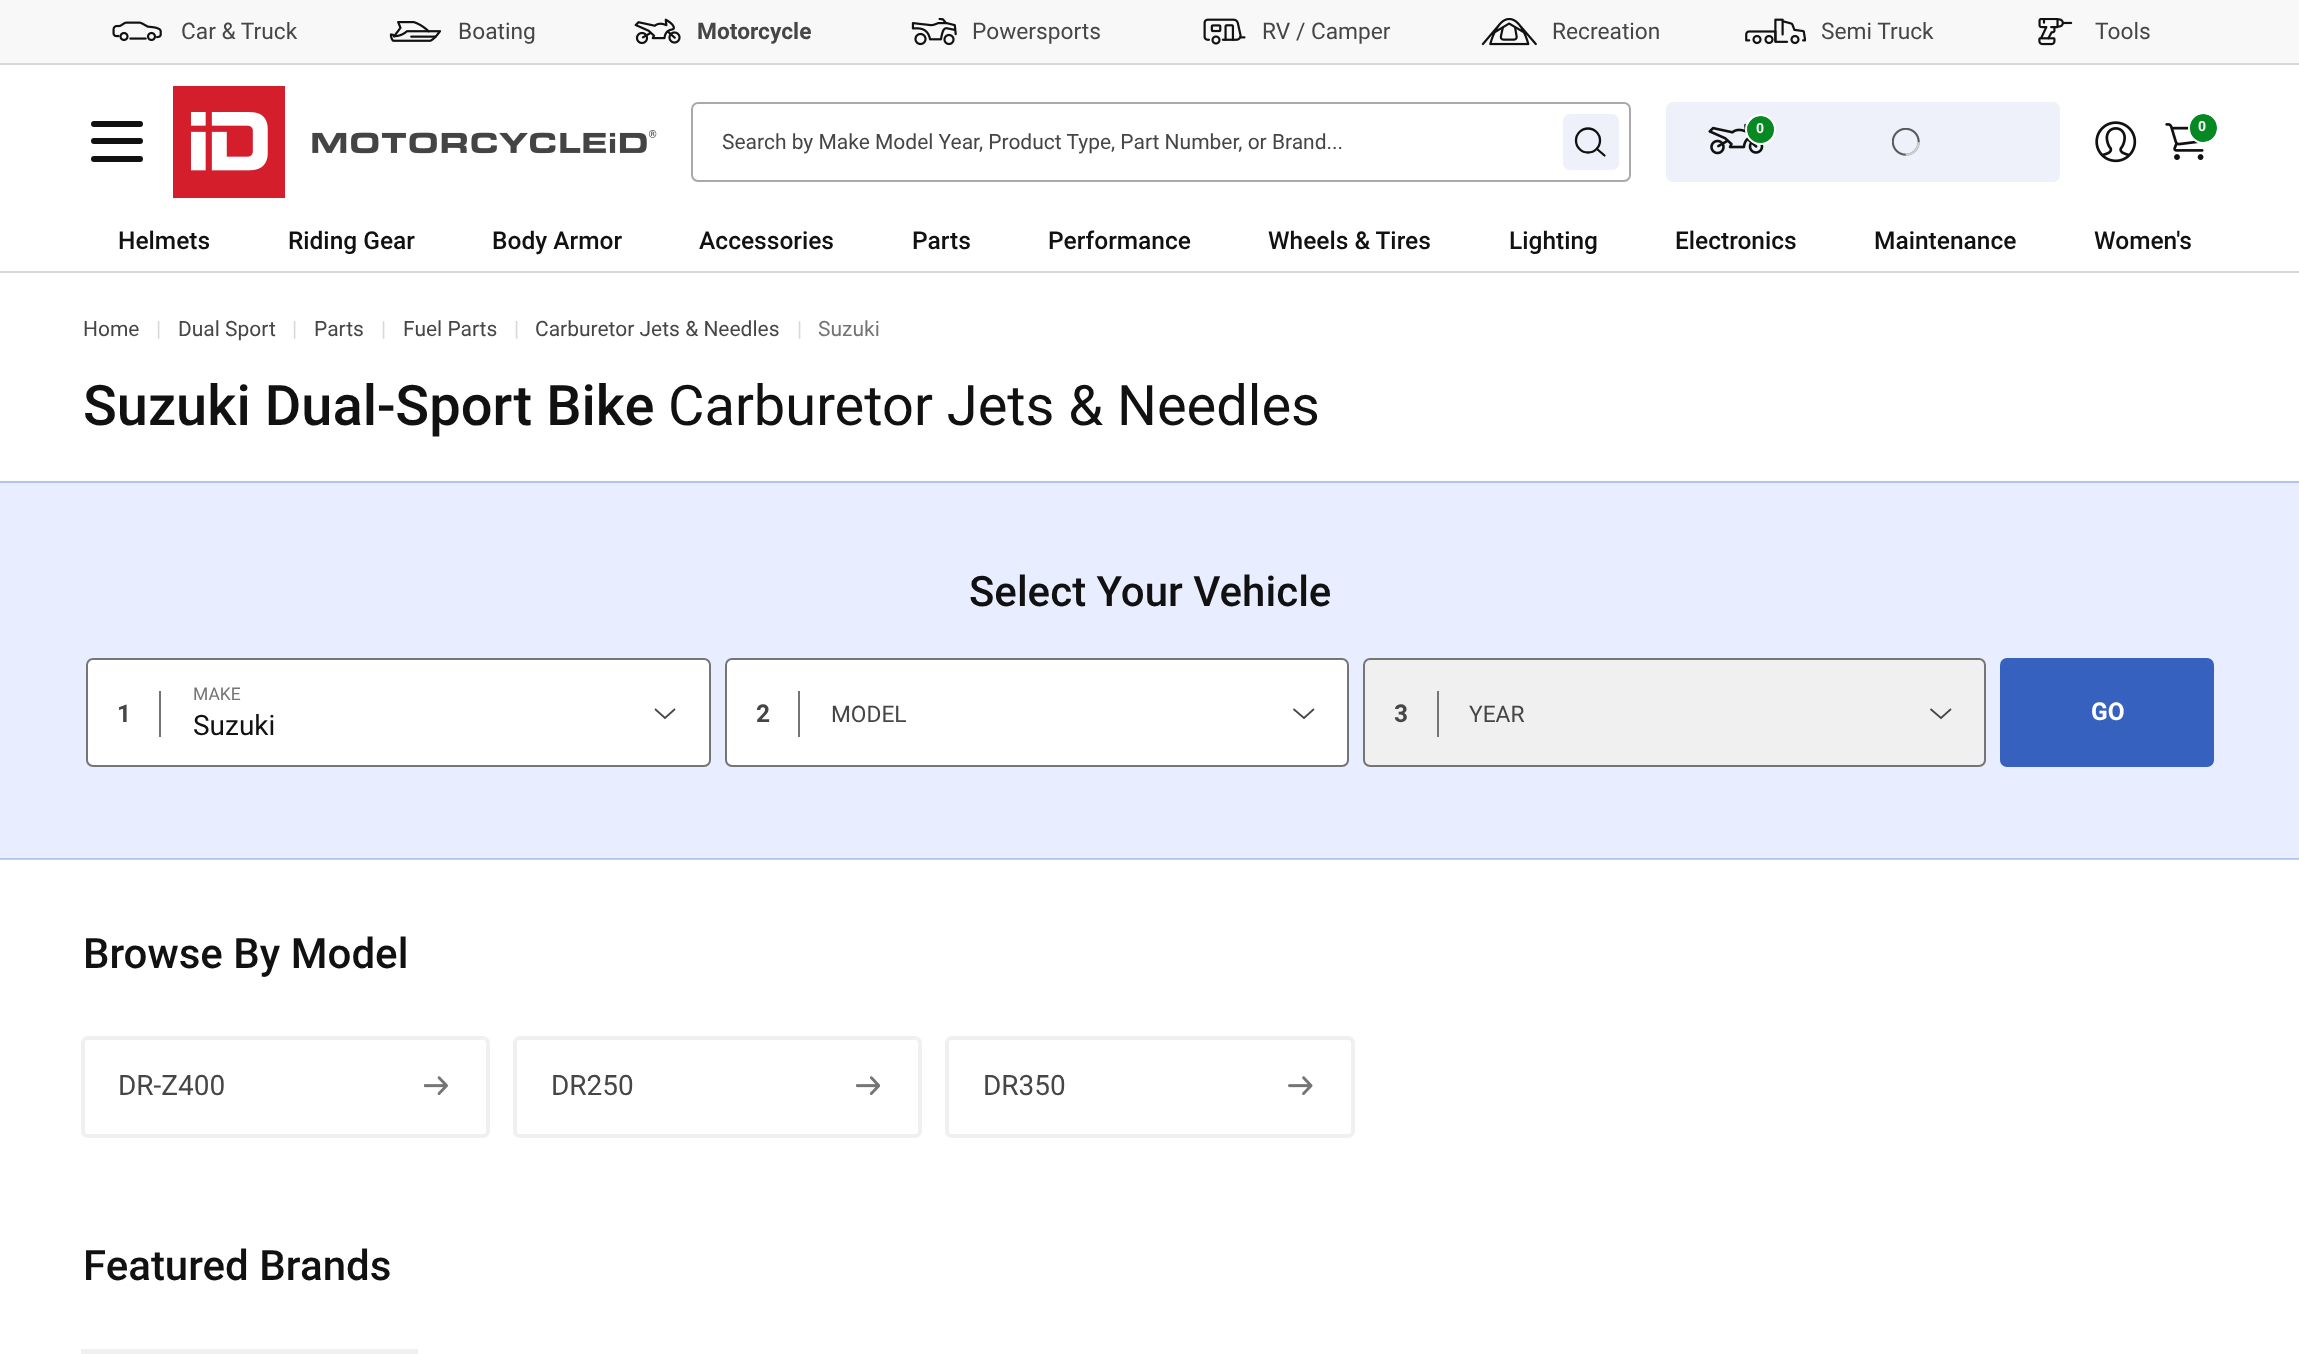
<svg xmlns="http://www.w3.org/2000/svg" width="2299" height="1354">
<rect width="100%" height="100%" fill="#fff"/>
<rect y="859" width="2299" height="1" fill="#c3d0ec"/>
<rect y="271" width="2299" height="2" fill="#d8d8d8"/>
<rect width="2299" height="63" fill="#f8f8f8"/>
<rect y="63" width="2299" height="2" fill="#d8d8d8"/>
<image x="112" y="21" width="50" height="21" href="media/1.png"/>
<text x="181" y="39" style="font-family:Roboto;font-size:22.75px;fill:#464646">Car &amp; Truck</text>
<image x="389" y="21" width="53" height="21" href="media/2.png"/>
<text x="458" y="39" style="font-family:Roboto;font-size:22.75px;fill:#464646">Boating</text>
<image x="634" y="18" width="47" height="27" href="media/3.png"/>
<text x="697" y="39" style="font-family:Roboto;font-size:22.75px;font-weight:bold;fill:#464646">Motorcycle</text>
<image x="911" y="18" width="46" height="28" href="media/4.png"/>
<text x="972" y="39" style="font-family:Roboto;font-size:22.75px;fill:#464646">Powersports</text>
<image x="1203" y="18" width="43" height="27" href="media/5.png"/>
<text x="1262" y="39" style="font-family:Roboto;font-size:22.75px;fill:#464646">RV / Camper</text>
<image x="1481" y="18" width="56" height="28" href="media/6.png"/>
<text x="1552" y="39" style="font-family:Roboto;font-size:22.75px;fill:#464646">Recreation</text>
<image x="1745" y="18" width="61" height="27" href="media/7.png"/>
<text x="1821" y="39" style="font-family:Roboto;font-size:22.75px;fill:#464646">Semi Truck</text>
<image x="2038" y="18" width="35" height="28" href="media/8.png"/>
<text x="2095" y="39" style="font-family:Roboto;font-size:22.75px;fill:#464646">Tools</text>
<rect x="91" y="121" width="52" height="6" rx="3" fill="#111"/>
<rect x="91" y="138" width="52" height="6" rx="3" fill="#111"/>
<rect x="91" y="156" width="52" height="6" rx="3" fill="#111"/>
<rect x="173" y="86" width="112" height="112" fill="#d41e2b"/>
<image x="191" y="112" width="77" height="59" href="media/9.png"/>
<image x="312" y="130" width="345" height="24" href="media/10.png"/>
<rect x="1666" y="102" width="394" height="80" rx="7" fill="#eef1f9"/>
<image x="1708" y="123" width="56" height="32" href="media/11.png"/>
<circle cx="1761" cy="130" r="14" fill="#068922"/>
<circle cx="1760.5" cy="129.5" r="14.5" fill="none" stroke="#fff" stroke-width="2"/>
<text x="1756" y="133" style="font-family:Roboto;font-size:14px;font-weight:bold;fill:#fff">0</text>
<image x="1892" y="128" width="28" height="28" href="media/12.png"/>
<image x="2095" y="121" width="42" height="42" href="media/13.png"/>
<image x="2165" y="123" width="41" height="37" href="media/14.png"/>
<circle cx="2203" cy="128" r="14" fill="#068922"/>
<rect x="2189" y="113" width="29" height="30" rx="14.5" fill="none" stroke="#fff" stroke-width="2"/>
<text x="2198" y="131" style="font-family:Roboto;font-size:14px;font-weight:bold;fill:#fff">0</text>
<rect x="692" y="103" width="938" height="78" rx="6" fill="none" stroke="#a9a9a9" stroke-width="2"/>
<text x="722" y="149" style="font-family:Roboto;font-size:21px;fill:#464646">Search by Make Model Year, Product Type, Part Number, or Brand...</text>
<rect x="1563" y="114" width="56" height="56" rx="7" fill="#eef1f9"/>
<circle cx="1588" cy="140.5" r="12" fill="none" stroke="#111" stroke-width="2.3"/>
<path d="M1597 149l7.5 6.5" fill="none" stroke="#111" stroke-width="2.3" stroke-linecap="round"/>
<text x="118" y="249" style="font-family:Roboto;font-size:24.5px;font-weight:500;fill:#111">Helmets</text>
<text x="288" y="249" style="font-family:Roboto;font-size:24.5px;font-weight:500;fill:#111">Riding Gear</text>
<text x="492" y="249" style="font-family:Roboto;font-size:24.5px;font-weight:500;fill:#111">Body Armor</text>
<text x="699" y="249" style="font-family:Roboto;font-size:24.5px;font-weight:500;fill:#111">Accessories</text>
<text x="912" y="249" style="font-family:Roboto;font-size:24.5px;font-weight:500;fill:#111">Parts</text>
<text x="1048" y="249" style="font-family:Roboto;font-size:24.5px;font-weight:500;fill:#111">Performance</text>
<text x="1268" y="249" style="font-family:Roboto;font-size:24.5px;font-weight:500;fill:#111">Wheels &amp; Tires</text>
<text x="1509" y="249" style="font-family:Roboto;font-size:24.5px;font-weight:500;fill:#111">Lighting</text>
<text x="1675" y="249" style="font-family:Roboto;font-size:24.5px;font-weight:500;fill:#111">Electronics</text>
<text x="1874" y="249" style="font-family:Roboto;font-size:24.5px;font-weight:500;fill:#111">Maintenance</text>
<text x="2094" y="249" style="font-family:Roboto;font-size:24.5px;font-weight:500;fill:#111">Women's</text>
<text x="83" y="336" style="font-family:Roboto;font-size:21px;fill:#464646">Home</text>
<text x="156" y="336" style="font-family:Roboto;font-size:21px;fill:#d8d8d8">|</text>
<text x="178" y="336" style="font-family:Roboto;font-size:21px;fill:#464646">Dual Sport</text>
<text x="292" y="336" style="font-family:Roboto;font-size:21px;fill:#d8d8d8">|</text>
<text x="314" y="336" style="font-family:Roboto;font-size:21px;fill:#464646">Parts</text>
<text x="381" y="336" style="font-family:Roboto;font-size:21px;fill:#d8d8d8">|</text>
<text x="403" y="336" style="font-family:Roboto;font-size:21px;fill:#464646">Fuel Parts</text>
<text x="514" y="336" style="font-family:Roboto;font-size:21px;fill:#d8d8d8">|</text>
<text x="535" y="336" style="font-family:Roboto;font-size:21px;fill:#464646">Carburetor Jets &amp; Needles</text>
<text x="797" y="336" style="font-family:Roboto;font-size:21px;fill:#d8d8d8">|</text>
<text x="818" y="336" style="font-family:Roboto;font-size:21px;fill:#757575">Suzuki</text>
<text x="83" y="425" style="font-family:Roboto;font-size:56px;font-weight:500;fill:#111">Suzuki Dual-Sport Bike</text>
<text x="668" y="425" style="font-family:Roboto;font-size:56px;fill:#111">Carburetor Jets &amp; Needles</text>
<rect y="483" width="2299" height="375" fill="#e8eeff"/>
<rect y="858" width="2299" height="1" fill="#b3c4ec"/>
<rect y="481" width="2299" height="2" fill="#b3c4ec"/>
<text x="969" y="606" style="font-family:Roboto;font-size:42px;font-weight:500;fill:#111">Select Your Vehicle</text>
<rect x="87" y="659" width="623" height="107" rx="6" fill="#fff" stroke="#757575" stroke-width="2"/>
<text x="193" y="700" style="font-family:Roboto;font-size:17.5px;fill:#757575">MAKE</text>
<rect x="159" y="691" width="2" height="46" fill="#757575"/>
<text x="117" y="722" style="font-family:Roboto;font-size:24.5px;font-weight:bold;fill:#464646">1</text>
<text x="193" y="735" style="font-family:Roboto;font-size:28px;fill:#111">Suzuki</text>
<path d="M675 709l-10 9l-10-9" fill="none" stroke="#464646" stroke-width="1.7"/>
<rect x="726" y="659" width="622" height="107" rx="6" fill="#fff" stroke="#757575" stroke-width="2"/>
<rect x="798" y="691" width="2" height="46" fill="#757575"/>
<text x="756" y="722" style="font-family:Roboto;font-size:24.5px;font-weight:bold;fill:#464646">2</text>
<text x="831" y="722" style="font-family:Roboto;font-size:22.75px;fill:#464646">MODEL</text>
<path d="M1314 709l-10 9l-10.5-9" fill="none" stroke="#464646" stroke-width="1.7"/>
<rect x="1364" y="659" width="621" height="107" rx="6" fill="#f0f0f0" stroke="#757575" stroke-width="2"/>
<rect x="1437" y="691" width="2" height="46" fill="#757575"/>
<text x="1394" y="722" style="font-family:Roboto;font-size:24.5px;font-weight:bold;fill:#464646">3</text>
<text x="1469" y="722" style="font-family:Roboto;font-size:22.75px;fill:#464646">YEAR</text>
<path d="M1951 709l-10 9l-10.5-9" fill="none" stroke="#464646" stroke-width="1.7"/>
<rect x="2000" y="658" width="214" height="109" rx="7" fill="#3761bf"/>
<text x="2091" y="720" style="font-family:Roboto;font-size:24.5px;font-weight:bold;fill:#fff">GO</text>
<text x="83" y="968" style="font-family:Roboto;font-size:42px;font-weight:500;fill:#111">Browse By Model</text>
<rect x="83" y="1038" width="405" height="98" rx="5" fill="none" stroke="#f0f0f0" stroke-width="4"/>
<text x="118" y="1095" style="font-family:Roboto;font-size:28px;fill:#464646">DR-Z400</text>
<image x="424" y="1076" width="24" height="19" href="media/15.png"/>
<rect x="515" y="1038" width="405" height="98" rx="5" fill="none" stroke="#f0f0f0" stroke-width="4"/>
<text x="551" y="1095" style="font-family:Roboto;font-size:28px;fill:#464646">DR250</text>
<image x="856" y="1076" width="24" height="19" href="media/16.png"/>
<rect x="947" y="1038" width="406" height="98" rx="5" fill="none" stroke="#f0f0f0" stroke-width="4"/>
<text x="983" y="1095" style="font-family:Roboto;font-size:28px;fill:#464646">DR350</text>
<image x="1288" y="1076" width="25" height="19" href="media/17.png"/>
<text x="83" y="1280" style="font-family:Roboto;font-size:42px;font-weight:500;fill:#111">Featured Brands</text>
<rect x="81" y="1349" width="337" height="5" fill="#f0f0f0"/>
</svg>
